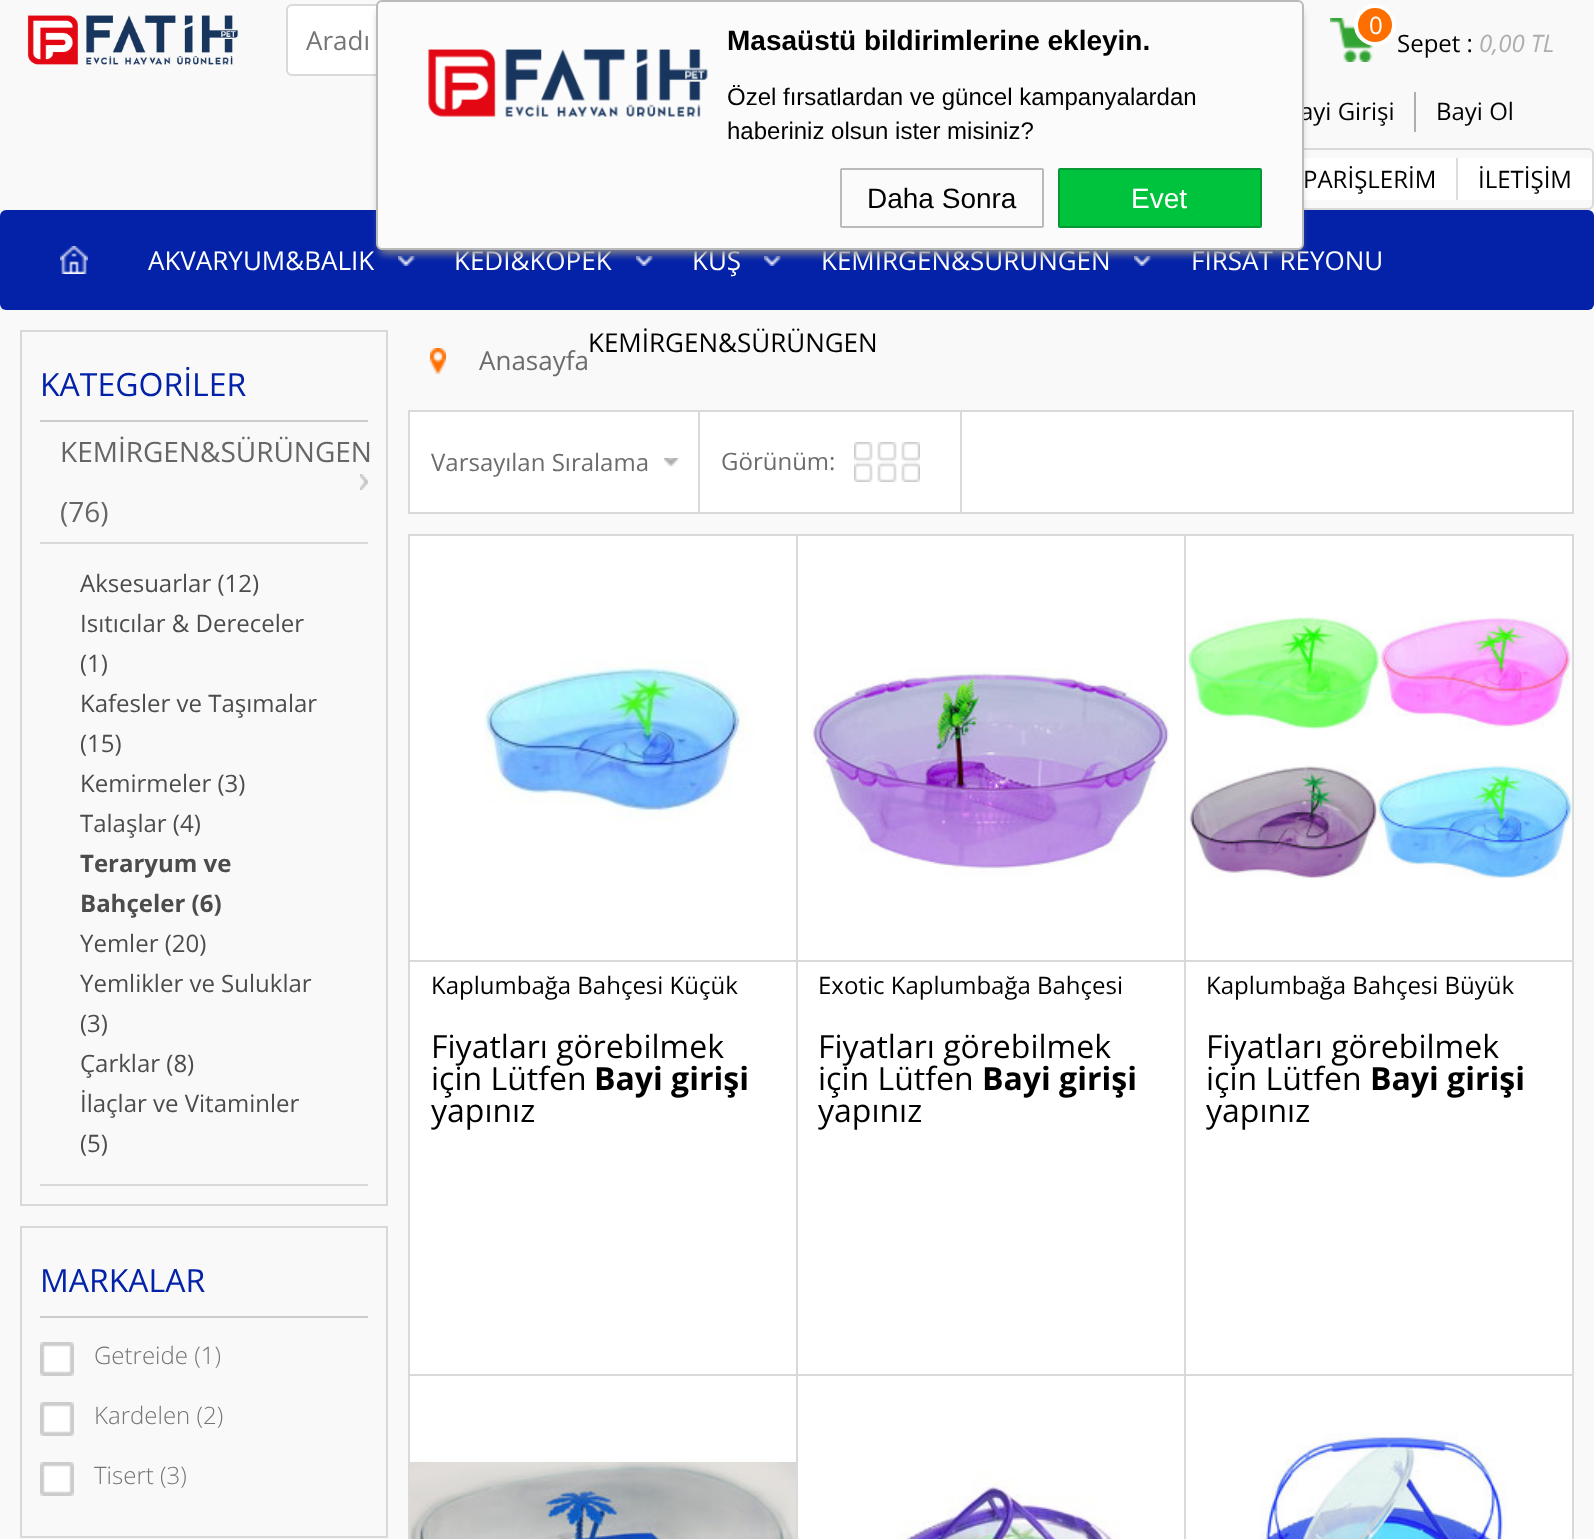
<svg xmlns="http://www.w3.org/2000/svg" width="1594" height="1539">
<rect width="100%" height="100%" fill="#f9f9f9"/>
<image x="27" y="15" width="212" height="50" href="media/1.png"/>
<rect x="287" y="5" width="622" height="70" rx="5" fill="#fff" stroke="#d9d9d9" stroke-width="2"/>
<text x="306" y="50" style="font-family:Open Sans;font-size:26px;fill:#757575">Aradı</text>
<image x="1330" y="18" width="43" height="44" href="media/2.png"/>
<circle cx="1375" cy="25" r="19" fill="#ff6f00" stroke="#fff" stroke-width="4"/>
<text x="1369" y="34" style="font-family:Open Sans;font-size:24px;fill:#fff">0</text>
<text x="1397" y="52" style="font-family:Open Sans;font-size:24px;fill:#000">Sepet :</text>
<text x="1479" y="52" style="font-family:Open Sans;font-size:24px;font-style:italic;fill:#aeaeae">0,00 TL</text>
<text x="1300" y="120" style="font-family:Open Sans;font-size:24px;fill:#000">ayi Girişi</text>
<rect x="1414" y="92" width="2" height="40" fill="#aeaeae"/>
<text x="1436" y="120" style="font-family:Open Sans;font-size:24px;fill:#000">Bayi Ol</text>
<rect x="789" y="149" width="804" height="60" rx="5" fill="none" stroke="#d9d9d9" stroke-width="2"/>
<rect x="1304" y="158" width="152" height="42" fill="#fff"/>
<rect x="1456" y="158" width="2" height="42" fill="#ddd"/>
<text x="1303" y="188" style="font-family:Open Sans;font-size:24px;fill:#000">PARİŞLERİM</text>
<rect x="1458" y="158" width="134" height="42" fill="#fff"/>
<text x="1478" y="188" style="font-family:Open Sans;font-size:24px;fill:#000">İLETİŞİM</text>
<rect y="210" width="1594" height="100" rx="6" fill="#0322a8"/>
<image x="60" y="246" width="28" height="28" href="media/3.png"/>
<image x="398" y="256" width="17" height="10" href="media/4.png"/>
<text x="148" y="270" style="font-family:Open Sans;font-size:26px;fill:#fff">AKVARYUM&amp;BALIK</text>
<image x="636" y="256" width="17" height="10" href="media/4.png"/>
<text x="454" y="270" style="font-family:Open Sans;font-size:26px;fill:#fff">KEDİ&amp;KÖPEK</text>
<image x="764" y="256" width="17" height="10" href="media/4.png"/>
<text x="692" y="270" style="font-family:Open Sans;font-size:26px;fill:#fff">KUŞ</text>
<image x="1134" y="256" width="17" height="10" href="media/4.png"/>
<text x="821" y="270" style="font-family:Open Sans;font-size:26px;fill:#fff">KEMİRGEN&amp;SÜRÜNGEN</text>
<text x="1191" y="270" style="font-family:Open Sans;font-size:26px;fill:#fff">FIRSAT REYONU</text>
<rect x="21" y="331" width="366" height="874" fill="none" stroke="#d9d9d9" stroke-width="2"/>
<rect x="40" y="420" width="328" height="2" fill="#cdcdcd"/>
<text x="40" y="396" style="font-family:Open Sans;font-size:32px;fill:#0322a8">KATEGORİLER</text>
<image x="360" y="474" width="8" height="16" href="media/5.png"/>
<text x="60" y="462" style="font-family:Open Sans;font-size:28px;fill:#666">KEMİRGEN&amp;SÜRÜNGEN</text>
<text x="60" y="522" style="font-family:Open Sans;font-size:28px;fill:#666">(76)</text>
<rect x="40" y="542" width="328" height="2" fill="#d9d9d9"/>
<rect x="40" y="1184" width="328" height="2" fill="#d9d9d9"/>
<text x="80" y="592" style="font-family:Open Sans;font-size:24px;fill:#4c4c4c">Aksesuarlar (12)</text>
<text x="80" y="632" style="font-family:Open Sans;font-size:24px;fill:#4c4c4c">Isıtıcılar &amp; Dereceler</text>
<text x="80" y="672" style="font-family:Open Sans;font-size:24px;fill:#4c4c4c">(1)</text>
<text x="80" y="712" style="font-family:Open Sans;font-size:24px;fill:#4c4c4c">Kafesler ve Taşımalar</text>
<text x="80" y="752" style="font-family:Open Sans;font-size:24px;fill:#4c4c4c">(15)</text>
<text x="80" y="792" style="font-family:Open Sans;font-size:24px;fill:#4c4c4c">Kemirmeler (3)</text>
<text x="80" y="832" style="font-family:Open Sans;font-size:24px;fill:#4c4c4c">Talaşlar (4)</text>
<text x="80" y="872" style="font-family:Open Sans;font-size:24px;font-weight:bold;fill:#4c4c4c">Teraryum ve</text>
<text x="80" y="912" style="font-family:Open Sans;font-size:24px;font-weight:bold;fill:#4c4c4c">Bahçeler (6)</text>
<text x="80" y="952" style="font-family:Open Sans;font-size:24px;fill:#4c4c4c">Yemler (20)</text>
<text x="80" y="992" style="font-family:Open Sans;font-size:24px;fill:#4c4c4c">Yemlikler ve Suluklar</text>
<text x="80" y="1032" style="font-family:Open Sans;font-size:24px;fill:#4c4c4c">(3)</text>
<text x="80" y="1072" style="font-family:Open Sans;font-size:24px;fill:#4c4c4c">Çarklar (8)</text>
<text x="80" y="1112" style="font-family:Open Sans;font-size:24px;fill:#4c4c4c">İlaçlar ve Vitaminler</text>
<text x="80" y="1152" style="font-family:Open Sans;font-size:24px;fill:#4c4c4c">(5)</text>
<rect x="21" y="1227" width="366" height="310" fill="none" stroke="#d9d9d9" stroke-width="2"/>
<rect x="40" y="1316" width="328" height="2" fill="#cdcdcd"/>
<text x="40" y="1292" style="font-family:Open Sans;font-size:32px;fill:#0322a8">MARKALAR</text>
<image x="40" y="1342" width="34" height="34" href="media/6.png"/>
<text x="94" y="1364" style="font-family:Open Sans;font-size:24px;font-weight:300;fill:#757575">Getreide (1)</text>
<image x="40" y="1402" width="34" height="34" href="media/6.png"/>
<text x="94" y="1424" style="font-family:Open Sans;font-size:24px;font-weight:300;fill:#757575">Kardelen (2)</text>
<image x="40" y="1462" width="34" height="34" href="media/6.png"/>
<text x="94" y="1484" style="font-family:Open Sans;font-size:24px;font-weight:300;fill:#757575">Tisert (3)</text>
<image x="430" y="348" width="16" height="26" href="media/7.png"/>
<text x="588" y="352" style="font-family:Open Sans;font-size:26px;fill:#000">KEMİRGEN&amp;SÜRÜNGEN</text>
<text x="479" y="370" style="font-family:Open Sans;font-size:26px;fill:#6c6c6c">Anasayfa</text>
<rect x="409" y="411" width="1164" height="102" fill="#fff" stroke="#d9d9d9" stroke-width="2"/>
<rect x="698" y="412" width="2" height="102" fill="#d9d9d9"/>
<image x="664" y="458" width="14" height="8" href="media/8.png"/>
<text x="431" y="471" style="font-family:Open Sans;font-size:24px;fill:#6c6c6c">Varsayılan Sıralama</text>
<rect x="960" y="412" width="2" height="102" fill="#d9d9d9"/>
<text x="721" y="470" style="font-family:Open Sans;font-size:24px;fill:#6c6c6c">Görünüm:</text>
<image x="854" y="442" width="66" height="40" href="media/9.png"/>
<rect x="408" y="534" width="1166" height="2" fill="#d9d9d9"/>
<rect x="408" y="534" width="2" height="1005" fill="#d9d9d9"/>
<rect x="410" y="536" width="386" height="838" fill="#fff"/>
<rect x="796" y="536" width="2" height="1003" fill="#d9d9d9"/>
<rect x="410" y="1374" width="388" height="2" fill="#d9d9d9"/>
<rect x="410" y="960" width="386" height="2" fill="#d9d9d9"/>
<image x="484" y="659" width="272" height="163" href="media/10.png"/>
<text x="431" y="994" style="font-family:Open Sans;font-size:24px;fill:#000">Kaplumbağa Bahçesi Küçük</text>
<text x="431" y="1058" style="font-family:Open Sans;font-size:32px;fill:#000">Fiyatları görebilmek</text>
<text x="431" y="1090" style="font-family:Open Sans;font-size:32px;fill:#000">için Lütfen</text>
<text x="594" y="1090" style="font-family:Open Sans;font-size:32px;font-weight:bold;fill:#000">Bayi girişi</text>
<text x="431" y="1122" style="font-family:Open Sans;font-size:32px;fill:#000">yapınız</text>
<rect x="798" y="536" width="386" height="838" fill="#fff"/>
<rect x="1184" y="536" width="2" height="1003" fill="#d9d9d9"/>
<rect x="798" y="1374" width="388" height="2" fill="#d9d9d9"/>
<rect x="798" y="960" width="386" height="2" fill="#d9d9d9"/>
<image x="810" y="667" width="359" height="210" href="media/11.png"/>
<text x="818" y="994" style="font-family:Open Sans;font-size:24px;fill:#000">Exotic Kaplumbağa Bahçesi</text>
<text x="818" y="1058" style="font-family:Open Sans;font-size:32px;fill:#000">Fiyatları görebilmek</text>
<text x="818" y="1090" style="font-family:Open Sans;font-size:32px;fill:#000">için Lütfen</text>
<text x="982" y="1090" style="font-family:Open Sans;font-size:32px;font-weight:bold;fill:#000">Bayi girişi</text>
<text x="818" y="1122" style="font-family:Open Sans;font-size:32px;fill:#000">yapınız</text>
<rect x="1186" y="536" width="386" height="838" fill="#fff"/>
<rect x="1572" y="536" width="2" height="1003" fill="#d9d9d9"/>
<rect x="1186" y="1374" width="388" height="2" fill="#d9d9d9"/>
<rect x="1186" y="960" width="386" height="2" fill="#d9d9d9"/>
<image x="1186" y="617" width="386" height="262" href="media/12.png"/>
<text x="1206" y="994" style="font-family:Open Sans;font-size:24px;fill:#000">Kaplumbağa Bahçesi Büyük</text>
<text x="1206" y="1058" style="font-family:Open Sans;font-size:32px;fill:#000">Fiyatları görebilmek</text>
<text x="1206" y="1090" style="font-family:Open Sans;font-size:32px;fill:#000">için Lütfen</text>
<text x="1370" y="1090" style="font-family:Open Sans;font-size:32px;font-weight:bold;fill:#000">Bayi girişi</text>
<text x="1206" y="1122" style="font-family:Open Sans;font-size:32px;fill:#000">yapınız</text>
<rect x="410" y="1376" width="386" height="86" fill="#fff"/>
<image x="410" y="1462" width="386" height="77" href="media/13.png"/>
<rect x="798" y="1376" width="386" height="163" fill="#fff"/>
<image x="897" y="1470" width="222" height="69" href="media/14.png"/>
<rect x="1186" y="1376" width="386" height="163" fill="#fff"/>
<image x="1260" y="1433" width="247" height="106" href="media/15.png"/>
<rect x="380" y="12" width="920" height="242" rx="2" fill="#888" filter="blur(4px)"/>
<rect x="377" y="1" width="926" height="248" rx="5" fill="#fbfbfb" stroke="#bababa" stroke-width="2"/>
<image x="428" y="49" width="281" height="68" href="media/16.png"/>
<text x="727" y="50" style="font-family:Liberation Sans;font-size:28px;font-weight:bold;fill:#000">Masaüstü bildirimlerine ekleyin.</text>
<text x="727" y="105" style="font-family:Liberation Sans;font-size:24px;fill:#000">Özel fırsatlardan ve güncel kampanyalardan</text>
<text x="727" y="139" style="font-family:Liberation Sans;font-size:24px;fill:#000">haberiniz olsun ister misiniz?</text>
<rect x="841" y="169" width="202" height="58" rx="1" fill="none" stroke="#bababa" stroke-width="2"/>
<text x="867" y="208" style="font-family:Liberation Sans;font-size:28px;fill:#000">Daha Sonra</text>
<rect x="1059" y="169" width="202" height="58" rx="1" fill="#00c33d" stroke="#059833" stroke-width="2"/>
<text x="1131" y="208" style="font-family:Liberation Sans;font-size:28px;fill:#fff">Evet</text>
</svg>
